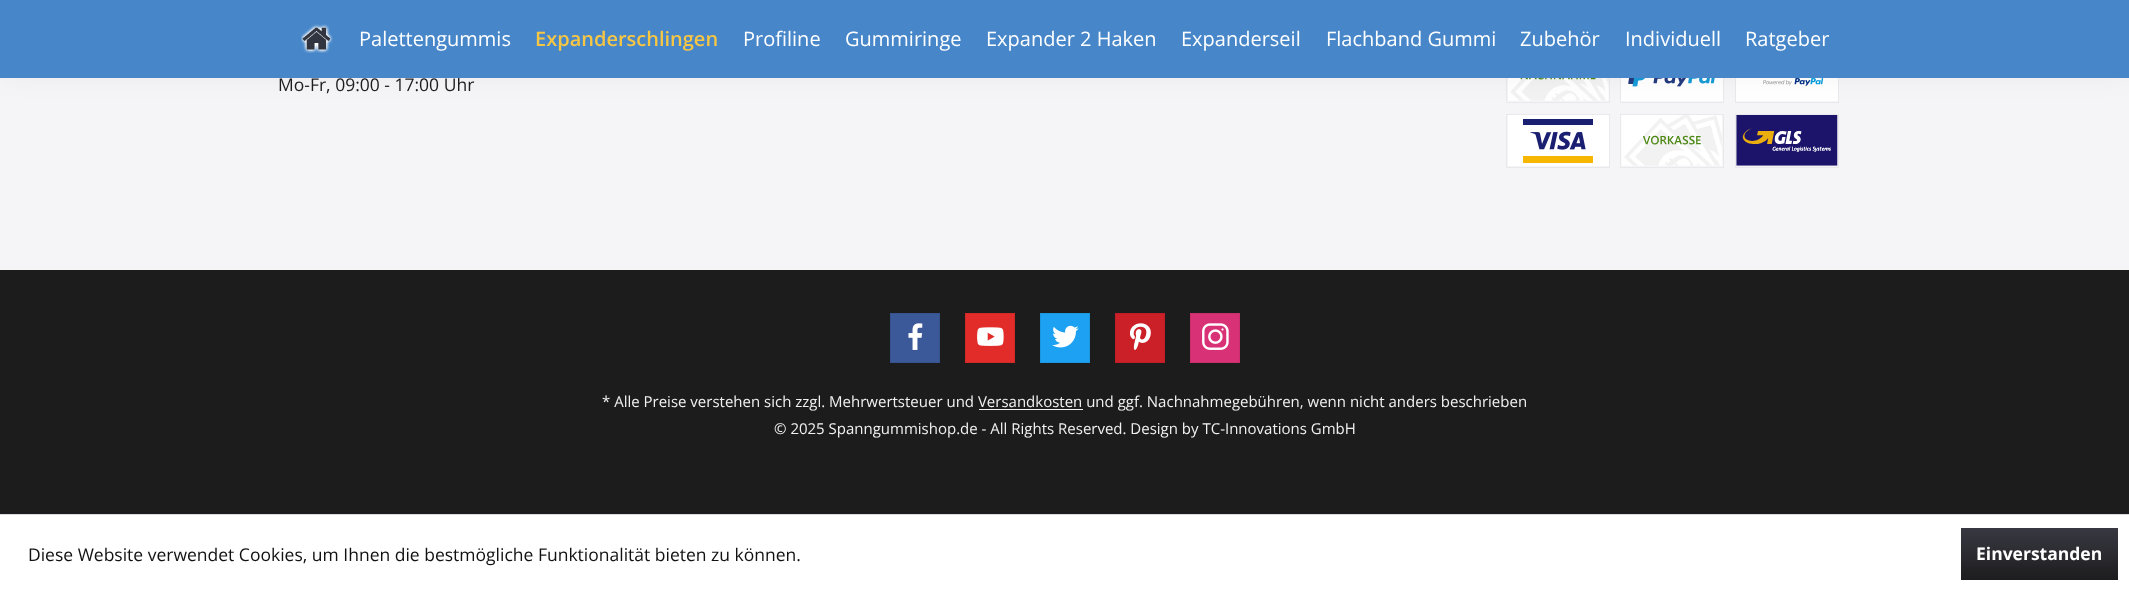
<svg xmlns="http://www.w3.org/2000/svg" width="2129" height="593">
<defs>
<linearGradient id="g1" gradientUnits="userSpaceOnUse" x1="2039" y1="528" x2="2039" y2="580"><stop offset="0" stop-color="#383842"/><stop offset="1" stop-color="#1d1d1f"/></linearGradient>
</defs>
<rect width="100%" height="100%" fill="#f5f5f7"/>
<rect x="1506.5" y="49.5" width="103" height="53" fill="none" stroke="#e9e9eb"/>
<image x="1508" y="78" width="101" height="23" href="media/2.png"/>
<rect x="1620.5" y="49.5" width="103" height="53" fill="none" stroke="#e9e9eb"/>
<image x="1621" y="78" width="102" height="23" href="media/3.png"/>
<rect x="1735.5" y="49.5" width="103" height="53" fill="none" stroke="#e9e9eb"/>
<image x="1736" y="78" width="102" height="23" href="media/4.png"/>
<rect x="1506.5" y="114.5" width="103" height="53" fill="none" stroke="#e9e9eb"/>
<image x="1508" y="115" width="101" height="51" href="media/5.png"/>
<rect x="1620.5" y="114.5" width="103" height="53" fill="none" stroke="#e9e9eb"/>
<image x="1621" y="115" width="101" height="51" href="media/6.png"/>
<rect x="1735.5" y="114.5" width="103" height="53" fill="none" stroke="#e9e9eb"/>
<image x="1736" y="115" width="102" height="51" href="media/7.png"/>
<rect width="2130" height="59" fill="#00000026" filter="blur(19px)"/>
<text x="278" y="91" style="font-family:Open Sans;font-size:17.5px;fill:#1d1d1f">Mo-Fr, 09:00 - 17:00 Uhr</text>
<rect width="2129" height="78" fill="#4686c9"/>
<image x="301" y="24" width="32" height="29" href="media/1.png"/>
<text x="359" y="46" style="font-family:Open Sans;font-size:20px;fill:#fff">Palettengummis</text>
<text x="535" y="46" style="font-family:Open Sans;font-size:20px;font-weight:600;fill:#f7c744">Expanderschlingen</text>
<text x="743" y="46" style="font-family:Open Sans;font-size:20px;fill:#fff">Profiline</text>
<text x="845" y="46" style="font-family:Open Sans;font-size:20px;fill:#fff">Gummiringe</text>
<text x="986" y="46" style="font-family:Open Sans;font-size:20px;fill:#fff">Expander 2 Haken</text>
<text x="1181" y="46" style="font-family:Open Sans;font-size:20px;fill:#fff">Expanderseil</text>
<text x="1326" y="46" style="font-family:Open Sans;font-size:20px;fill:#fff">Flachband Gummi</text>
<text x="1520" y="46" style="font-family:Open Sans;font-size:20px;fill:#fff">Zubehör</text>
<text x="1625" y="46" style="font-family:Open Sans;font-size:20px;fill:#fff">Individuell</text>
<text x="1745" y="46" style="font-family:Open Sans;font-size:20px;fill:#fff">Ratgeber</text>
<rect y="270" width="2129" height="244" fill="#1c1c1c"/>
<rect x="891" y="314" width="48" height="48" fill="#3b5998"/>
<image x="908" y="323" width="15" height="27" href="media/8.png"/>
<rect x="890.5" y="313.5" width="49" height="49" fill="none" stroke="#37538d"/>
<rect x="966" y="314" width="48" height="48" fill="#e12c29"/>
<image x="977" y="327" width="27" height="19" href="media/9.png"/>
<rect x="965.5" y="313.5" width="49" height="49" fill="none" stroke="#d12926"/>
<rect x="1041" y="314" width="48" height="48" fill="#1da1f2"/>
<image x="1052" y="325" width="27" height="23" href="media/10.png"/>
<rect x="1040.5" y="313.5" width="49" height="49" fill="none" stroke="#1b96e1"/>
<rect x="1116" y="314" width="48" height="48" fill="#cc2028"/>
<image x="1129" y="323" width="22" height="27" href="media/11.png"/>
<rect x="1115.5" y="313.5" width="49" height="49" fill="none" stroke="#be1e25"/>
<rect x="1191" y="314" width="48" height="48" fill="#d93175"/>
<image x="1202" y="323" width="27" height="27" href="media/12.png"/>
<rect x="1190.5" y="313.5" width="49" height="49" fill="none" stroke="#ca2e6d"/>
<text x="602" y="407" style="font-family:Open Sans;font-size:15px;fill:#f1f1f1">* Alle Preise verstehen sich zzgl. Mehrwertsteuer und Versandkosten und ggf. Nachnahmegebühren, wenn nicht anders beschrieben</text>
<rect x="979" y="409" width="104" height="1" fill="#f1f1f1"/>
<text x="774" y="434" style="font-family:Open Sans;font-size:15px;fill:#f1f1f1">© 2025 Spanngummishop.de - All Rights Reserved. Design by TC-Innovations GmbH</text>
<rect y="515" width="2129" height="78" fill="#fff"/>
<rect y="514" width="2129" height="1" fill="#dadae5"/>
<text x="28" y="561" style="font-family:Open Sans;font-size:17.5px;fill:#111">Diese Website verwendet Cookies, um Ihnen die bestmögliche Funktionalität bieten zu können.</text>
<rect x="1961" y="528" width="157" height="52" fill="url(#g1)"/>
<text x="1976" y="560" style="font-family:Open Sans;font-size:17.5px;font-weight:bold;fill:#fff">Einverstanden</text>
</svg>
